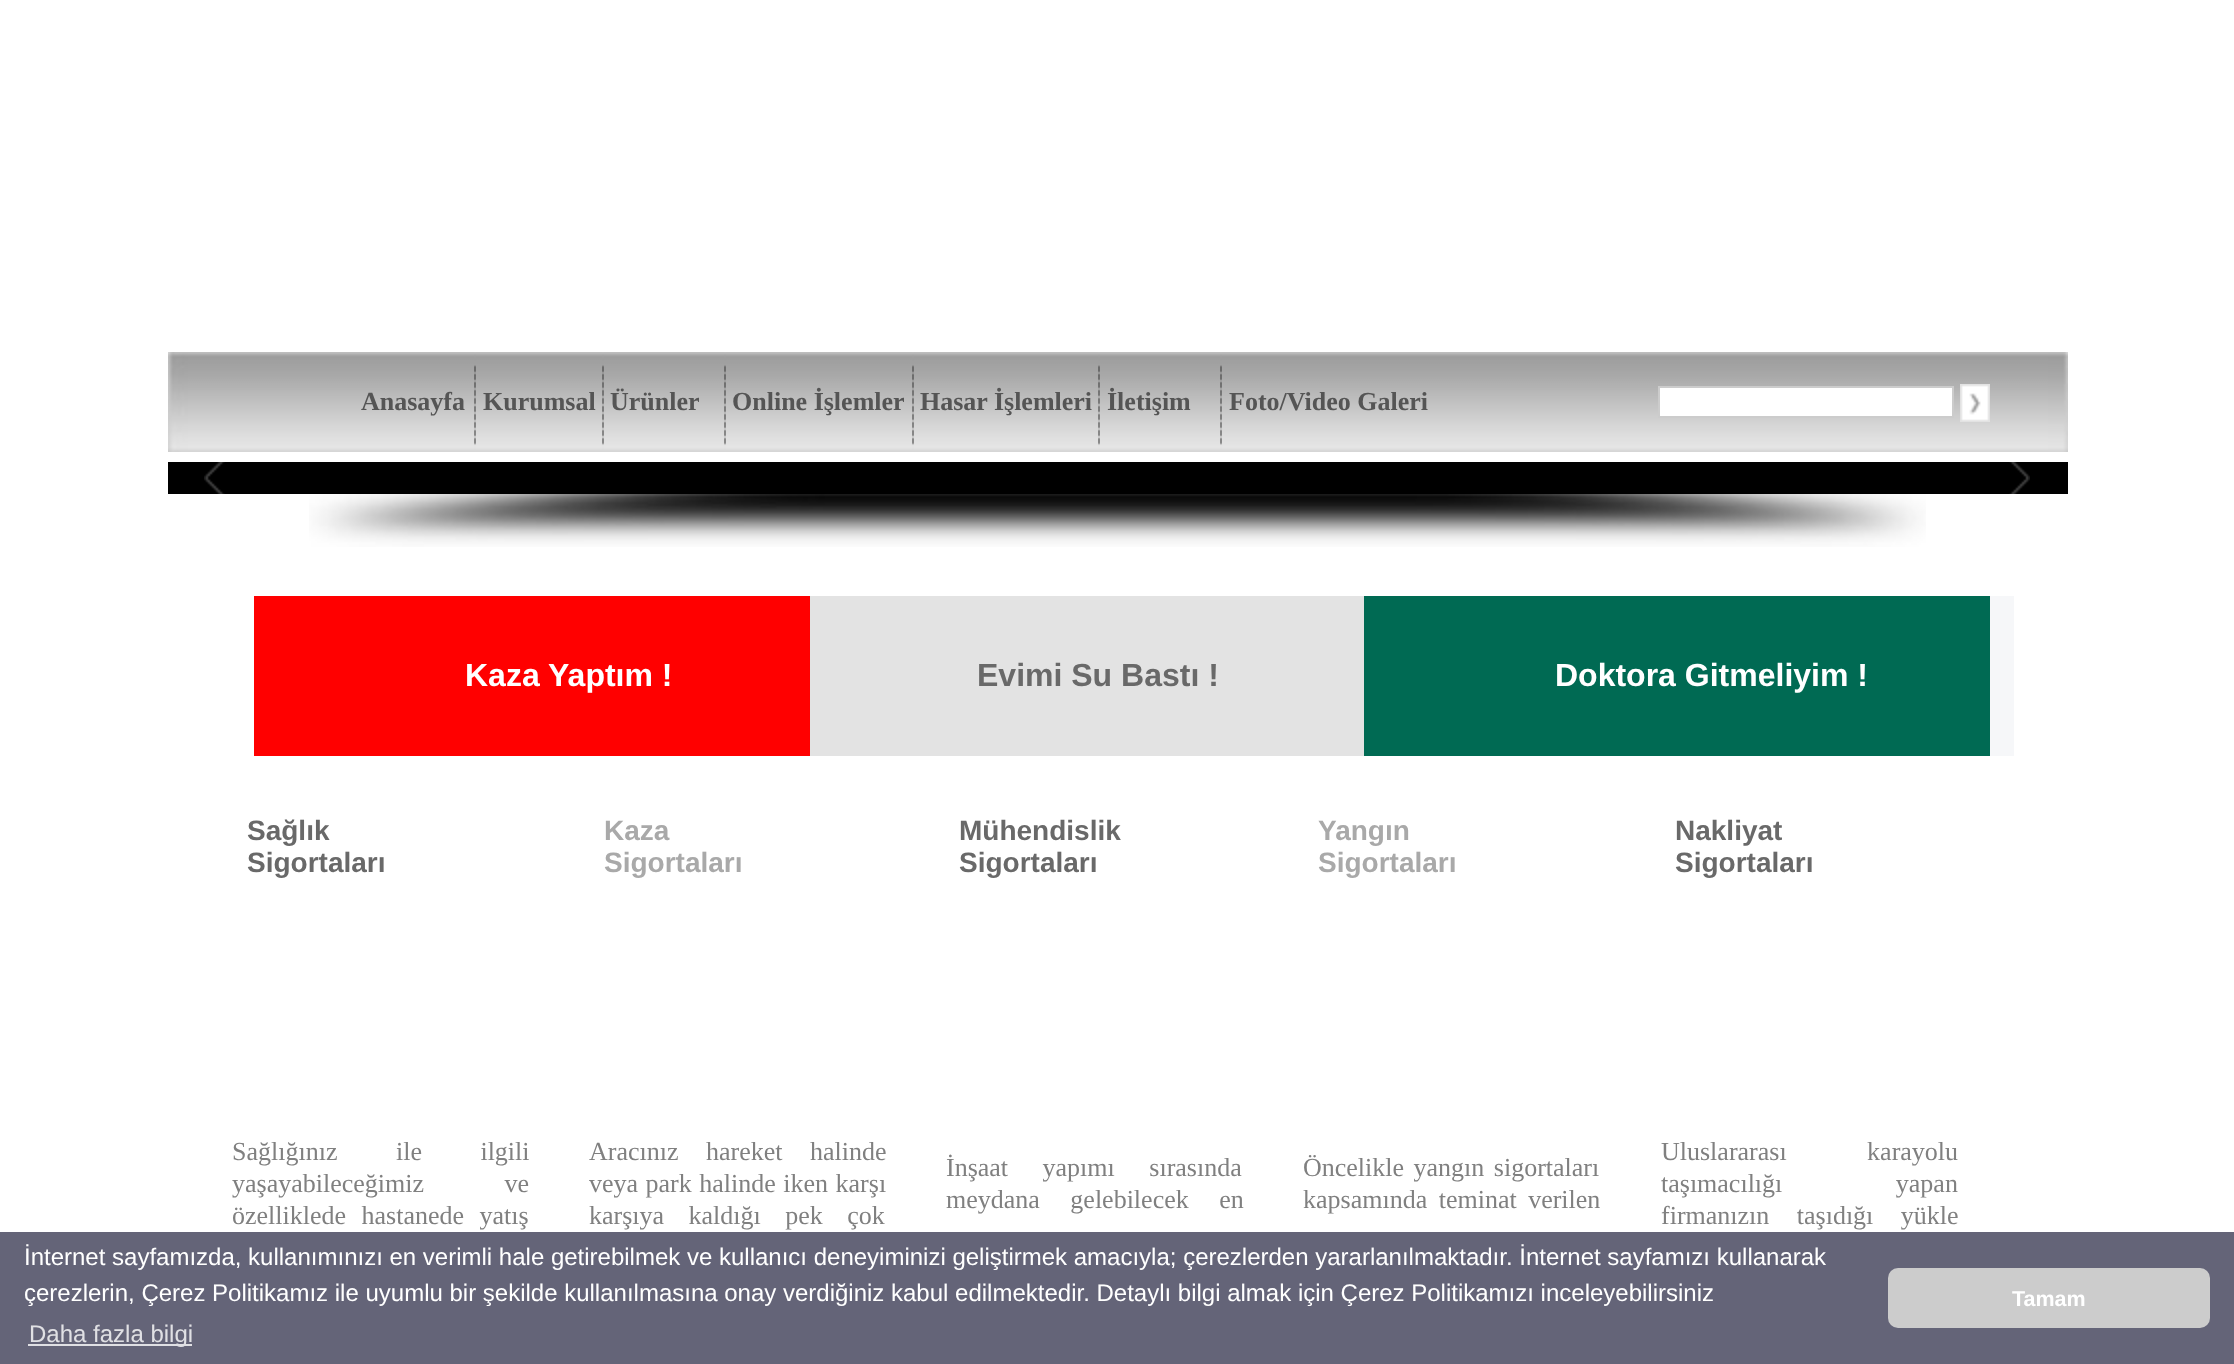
<svg xmlns="http://www.w3.org/2000/svg" width="2234" height="1364">
<rect width="100%" height="100%" fill="#fff"/>
<image x="168" y="352" width="20" height="100" href="media/1.png"/>
<image x="188" y="352" width="1860" height="100" href="media/2.png"/>
<text x="361" y="410" style="font-family:Liberation Serif;font-size:26px;font-weight:bold;fill:#555">Anasayfa</text>
<image x="474" y="352" width="2" height="100" href="media/3.png"/>
<text x="483" y="410" style="font-family:Liberation Serif;font-size:26px;font-weight:bold;fill:#555">Kurumsal</text>
<image x="602" y="352" width="2" height="100" href="media/3.png"/>
<text x="610" y="410" style="font-family:Liberation Serif;font-size:26px;font-weight:bold;fill:#555">Ürünler</text>
<image x="724" y="352" width="2" height="100" href="media/3.png"/>
<text x="732" y="410" style="font-family:Liberation Serif;font-size:26px;font-weight:bold;fill:#555">Online İşlemler</text>
<image x="912" y="352" width="2" height="100" href="media/3.png"/>
<text x="920" y="410" style="font-family:Liberation Serif;font-size:26px;font-weight:bold;fill:#555">Hasar İşlemleri</text>
<image x="1098" y="352" width="2" height="100" href="media/3.png"/>
<text x="1107" y="410" style="font-family:Liberation Serif;font-size:26px;font-weight:bold;fill:#555">İletişim</text>
<image x="1220" y="352" width="2" height="100" href="media/3.png"/>
<text x="1229" y="410" style="font-family:Liberation Serif;font-size:26px;font-weight:bold;fill:#555">Foto/Video Galeri</text>
<rect x="1659" y="387" width="294" height="30" fill="#fff" stroke="#ccc" stroke-width="2"/>
<image x="1960" y="384" width="30" height="38" href="media/4.png"/>
<image x="2048" y="352" width="20" height="100" href="media/5.png"/>
<rect x="168" y="462" width="1900" height="32" fill="#000"/>
<image x="204" y="462" width="21" height="32" href="media/6.png"/>
<image x="2009" y="462" width="21" height="32" href="media/7.png"/>
<image x="309" y="494" width="1617" height="53" href="media/8.png"/>
<rect x="254" y="596" width="556" height="160" fill="#f00"/>
<text x="465" y="686" style="font-family:Liberation Sans;font-size:32px;font-weight:bold;fill:#fff">Kaza Yaptım !</text>
<rect x="810" y="596" width="554" height="160" fill="#e3e3e3"/>
<text x="977" y="686" style="font-family:Liberation Sans;font-size:32px;font-weight:bold;fill:#696969">Evimi Su Bastı !</text>
<rect x="1364" y="596" width="626" height="160" fill="#006a53"/>
<text x="1555" y="686" style="font-family:Liberation Sans;font-size:32px;font-weight:bold;fill:#fff">Doktora Gitmeliyim !</text>
<rect x="1990" y="596" width="24" height="160" fill="#f6f7f9"/>
<text x="247" y="840" style="font-family:Liberation Sans;font-size:28px;font-weight:bold;fill:#696969">Sağlık</text>
<text x="247" y="872" style="font-family:Liberation Sans;font-size:28px;font-weight:bold;fill:#696969">Sigortaları</text>
<text x="604" y="840" style="font-family:Liberation Sans;font-size:28px;font-weight:bold;fill:#a9a9a9">Kaza</text>
<text x="604" y="872" style="font-family:Liberation Sans;font-size:28px;font-weight:bold;fill:#a9a9a9">Sigortaları</text>
<text x="959" y="840" style="font-family:Liberation Sans;font-size:28px;font-weight:bold;fill:#696969">Mühendislik</text>
<text x="959" y="872" style="font-family:Liberation Sans;font-size:28px;font-weight:bold;fill:#696969">Sigortaları</text>
<text x="1318" y="840" style="font-family:Liberation Sans;font-size:28px;font-weight:bold;fill:#a9a9a9">Yangın</text>
<text x="1318" y="872" style="font-family:Liberation Sans;font-size:28px;font-weight:bold;fill:#a9a9a9">Sigortaları</text>
<text x="1675" y="840" style="font-family:Liberation Sans;font-size:28px;font-weight:bold;fill:#696969">Nakliyat</text>
<text x="1675" y="872" style="font-family:Liberation Sans;font-size:28px;font-weight:bold;fill:#696969">Sigortaları</text>
<text x="232" y="1160" word-spacing="52" style="font-family:Liberation Serif;font-size:26px;fill:#808080">Sağlığınız ile ilgili</text>
<text x="232" y="1192" word-spacing="74" style="font-family:Liberation Serif;font-size:26px;fill:#808080">yaşayabileceğimiz ve</text>
<text x="232" y="1224" word-spacing="9" style="font-family:Liberation Serif;font-size:26px;fill:#808080">özelliklede hastanede yatış</text>
<text x="589" y="1160" word-spacing="21" style="font-family:Liberation Serif;font-size:26px;fill:#808080">Aracınız hareket halinde</text>
<text x="589" y="1192" word-spacing="1" style="font-family:Liberation Serif;font-size:26px;fill:#808080">veya park halinde iken karşı</text>
<text x="589" y="1224" word-spacing="18" style="font-family:Liberation Serif;font-size:26px;fill:#808080">karşıya kaldığı pek çok</text>
<text x="946" y="1176" word-spacing="28" style="font-family:Liberation Serif;font-size:26px;fill:#808080">İnşaat yapımı sırasında</text>
<text x="946" y="1208" word-spacing="24" style="font-family:Liberation Serif;font-size:26px;fill:#808080">meydana gelebilecek en</text>
<text x="1303" y="1176" word-spacing="3" style="font-family:Liberation Serif;font-size:26px;fill:#808080">Öncelikle yangın sigortaları</text>
<text x="1303" y="1208" word-spacing="5" style="font-family:Liberation Serif;font-size:26px;fill:#808080">kapsamında teminat verilen</text>
<text x="1661" y="1160" word-spacing="74" style="font-family:Liberation Serif;font-size:26px;fill:#808080">Uluslararası karayolu</text>
<text x="1661" y="1192" word-spacing="107" style="font-family:Liberation Serif;font-size:26px;fill:#808080">taşımacılığı yapan</text>
<text x="1661" y="1224" word-spacing="21" style="font-family:Liberation Serif;font-size:26px;fill:#808080">firmanızın taşıdığı yükle</text>
<rect y="1232" width="2234" height="132" fill="#646478"/>
<text x="24" y="1265" style="font-family:Liberation Sans;font-size:24px;fill:#fff">İnternet sayfamızda, kullanımınızı en verimli hale getirebilmek ve kullanıcı deneyiminizi geliştirmek amacıyla; çerezlerden yararlanılmaktadır. İnternet sayfamızı kullanarak</text>
<text x="24" y="1301" style="font-family:Liberation Sans;font-size:24px;fill:#fff">çerezlerin, Çerez Politikamız ile uyumlu bir şekilde kullanılmasına onay verdiğiniz kabul edilmektedir. Detaylı bilgi almak için Çerez Politikamızı inceleyebilirsiniz</text>
<rect x="28" y="1344" width="164" height="2" fill="#e0e0e4"/>
<text x="29" y="1342" style="font-family:Liberation Sans;font-size:24px;fill:#e0e0e4">Daha fazla bilgi</text>
<rect x="1888" y="1268" width="322" height="60" rx="10" fill="#ccc"/>
<text x="2012" y="1306" style="font-family:Liberation Sans;font-size:21.5px;font-weight:bold;fill:#fff">Tamam</text>
</svg>
